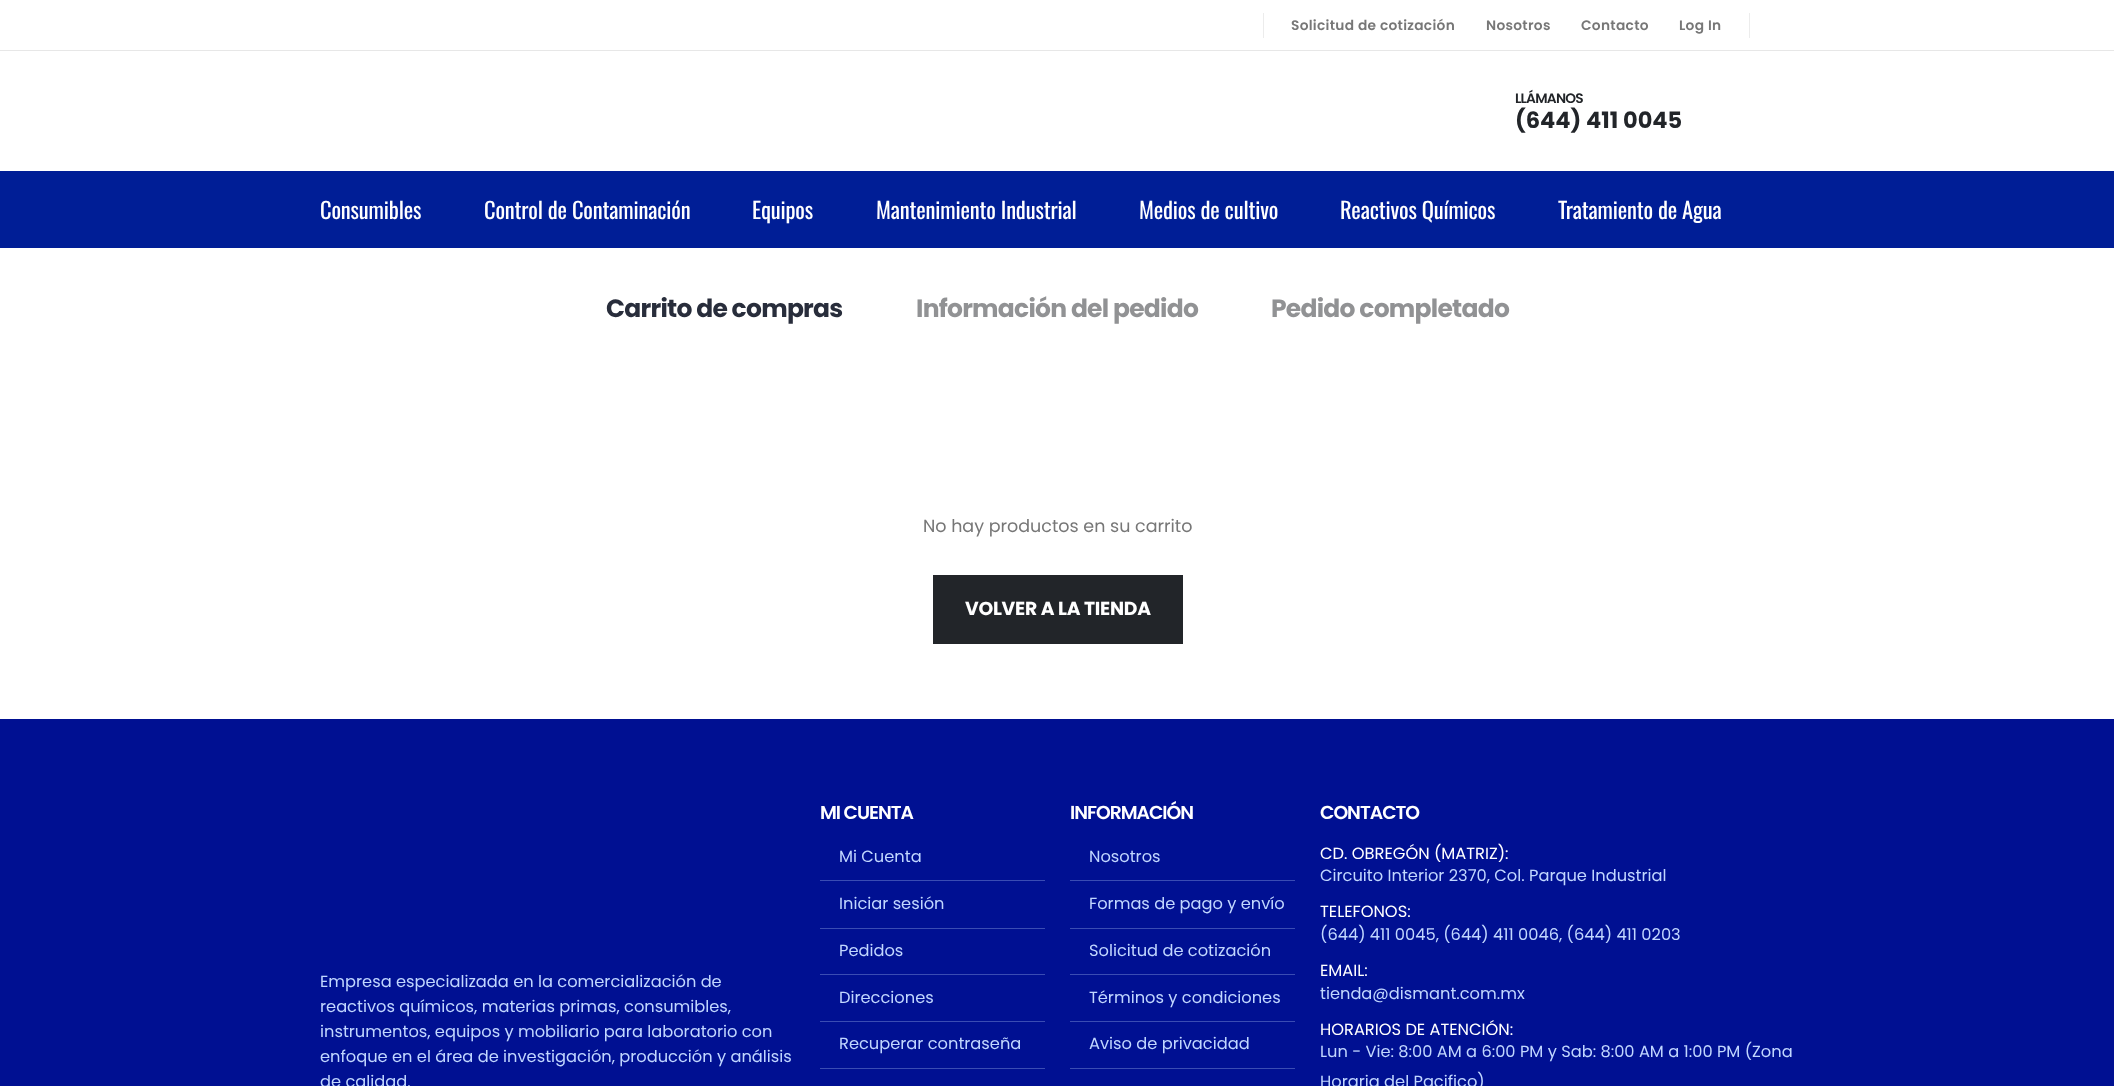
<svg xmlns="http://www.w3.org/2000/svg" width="2114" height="1086">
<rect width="100%" height="100%" fill="#fff"/>
<rect y="50" width="2114" height="1" fill="#e7e7e7"/>
<rect x="1263" y="13" width="1" height="25" fill="#ececec"/>
<text x="1291" y="30" style="font-family:Poppins;font-size:13.75px;font-weight:600;letter-spacing:0.3px;fill:#777">Solicitud de cotización</text>
<text x="1486" y="30" style="font-family:Poppins;font-size:13.75px;font-weight:600;letter-spacing:0.3px;fill:#777">Nosotros</text>
<text x="1581" y="30" style="font-family:Poppins;font-size:13.75px;font-weight:600;letter-spacing:0.3px;fill:#777">Contacto</text>
<text x="1679" y="30" style="font-family:Poppins;font-size:13.75px;font-weight:600;letter-spacing:0.3px;fill:#777">Log In</text>
<rect x="1749" y="13" width="1" height="25" fill="#ececec"/>
<text x="1515" y="103" style="font-family:Poppins;font-size:13.75px;font-weight:600;letter-spacing:-0.75px;fill:#222529">LLÁMANOS</text>
<text x="1515" y="128" style="font-family:Poppins;font-size:22.5px;font-weight:bold;fill:#222529">(644) 411 0045</text>
<rect y="171" width="2114" height="77" fill="#001e96"/>
<text x="320" y="219" style="font-family:Oswald;font-size:22.5px;letter-spacing:-0.15px;fill:#fff">Consumibles</text>
<text x="484" y="219" style="font-family:Oswald;font-size:22.5px;letter-spacing:-0.15px;fill:#fff">Control de Contaminación</text>
<text x="752" y="219" style="font-family:Oswald;font-size:22.5px;letter-spacing:-0.15px;fill:#fff">Equipos</text>
<text x="876" y="219" style="font-family:Oswald;font-size:22.5px;letter-spacing:-0.15px;fill:#fff">Mantenimiento Industrial</text>
<text x="1139" y="219" style="font-family:Oswald;font-size:22.5px;letter-spacing:-0.15px;fill:#fff">Medios de cultivo</text>
<text x="1340" y="219" style="font-family:Oswald;font-size:22.5px;letter-spacing:-0.15px;fill:#fff">Reactivos Químicos</text>
<text x="1558" y="219" style="font-family:Oswald;font-size:22.5px;letter-spacing:-0.15px;fill:#fff">Tratamiento de Agua</text>
<text x="606" y="317" style="font-family:Poppins;font-size:25px;font-weight:bold;letter-spacing:-0.75px;fill:#282d3b">Carrito de compras</text>
<text x="916" y="317" style="font-family:Poppins;font-size:25px;font-weight:bold;letter-spacing:-0.75px;fill:#919294">Información del pedido</text>
<text x="1271" y="317" style="font-family:Poppins;font-size:25px;font-weight:bold;letter-spacing:-0.75px;fill:#919294">Pedido completado</text>
<text x="923" y="532" style="font-family:Poppins;font-size:17.5px;fill:#777">No hay productos en su carrito</text>
<rect x="933" y="575" width="250" height="69" fill="#222529"/>
<text x="965" y="615" style="font-family:Poppins;font-size:18.75px;font-weight:bold;letter-spacing:-0.25px;fill:#fff">VOLVER A LA TIENDA</text>
<rect y="719" width="2114" height="367" fill="#001092"/>
<text x="320" y="987" style="font-family:Poppins;font-size:16.25px;fill:#c1d7ff">Empresa especializada en la comercialización de</text>
<text x="320" y="1012" style="font-family:Poppins;font-size:16.25px;fill:#c1d7ff">reactivos químicos, materias primas, consumibles,</text>
<text x="320" y="1037" style="font-family:Poppins;font-size:16.25px;fill:#c1d7ff">instrumentos, equipos y mobiliario para laboratorio con</text>
<text x="320" y="1062" style="font-family:Poppins;font-size:16.25px;fill:#c1d7ff">enfoque en el área de investigación, producción y análisis</text>
<text x="320" y="1087" style="font-family:Poppins;font-size:16.25px;fill:#c1d7ff">de calidad.</text>
<text x="820" y="819" style="font-family:Poppins;font-size:18.75px;font-weight:600;letter-spacing:-1px;fill:#fff">MI CUENTA</text>
<rect x="820" y="1068" width="225" height="1" fill="#3a4cb3"/>
<text x="839" y="862" style="font-family:Poppins;font-size:16.25px;fill:#c1d7ff">Mi Cuenta</text>
<rect x="820" y="880" width="225" height="1" fill="#3a4cb3"/>
<text x="839" y="909" style="font-family:Poppins;font-size:16.25px;fill:#c1d7ff">Iniciar sesión</text>
<rect x="820" y="928" width="225" height="1" fill="#3a4cb3"/>
<text x="839" y="956" style="font-family:Poppins;font-size:16.25px;fill:#c1d7ff">Pedidos</text>
<rect x="820" y="974" width="225" height="1" fill="#3a4cb3"/>
<text x="839" y="1003" style="font-family:Poppins;font-size:16.25px;fill:#c1d7ff">Direcciones</text>
<rect x="820" y="1021" width="225" height="1" fill="#3a4cb3"/>
<text x="839" y="1049" style="font-family:Poppins;font-size:16.25px;fill:#c1d7ff">Recuperar contraseña</text>
<text x="1070" y="819" style="font-family:Poppins;font-size:18.75px;font-weight:600;letter-spacing:-1px;fill:#fff">INFORMACIÓN</text>
<text x="1089" y="862" style="font-family:Poppins;font-size:16.25px;fill:#c1d7ff">Nosotros</text>
<rect x="1070" y="880" width="225" height="1" fill="#3a4cb3"/>
<text x="1089" y="909" style="font-family:Poppins;font-size:16.25px;fill:#c1d7ff">Formas de pago y envío</text>
<rect x="1070" y="928" width="225" height="1" fill="#3a4cb3"/>
<text x="1089" y="956" style="font-family:Poppins;font-size:16.25px;fill:#c1d7ff">Solicitud de cotización</text>
<rect x="1070" y="974" width="225" height="1" fill="#3a4cb3"/>
<text x="1089" y="1003" style="font-family:Poppins;font-size:16.25px;fill:#c1d7ff">Términos y condiciones</text>
<rect x="1070" y="1021" width="225" height="1" fill="#3a4cb3"/>
<text x="1089" y="1049" style="font-family:Poppins;font-size:16.25px;fill:#c1d7ff">Aviso de privacidad</text>
<rect x="1070" y="1068" width="225" height="1" fill="#3a4cb3"/>
<text x="1320" y="819" style="font-family:Poppins;font-size:18.75px;font-weight:600;letter-spacing:-1px;fill:#fff">CONTACTO</text>
<text x="1320" y="859" style="font-family:Poppins;font-size:16.25px;fill:#fff">CD. OBREGÓN (MATRIZ):</text>
<text x="1320" y="881" style="font-family:Poppins;font-size:16.25px;fill:#c1d7ff">Circuito Interior 2370, Col. Parque Industrial</text>
<text x="1320" y="917" style="font-family:Poppins;font-size:16.25px;fill:#fff">TELEFONOS:</text>
<text x="1320" y="940" style="font-family:Poppins;font-size:16.25px;fill:#c1d7ff">(644) 411 0045, (644) 411 0046, (644) 411 0203</text>
<text x="1320" y="976" style="font-family:Poppins;font-size:16.25px;fill:#fff">EMAIL:</text>
<text x="1320" y="999" style="font-family:Poppins;font-size:16.25px;fill:#c1d7ff">tienda@dismant.com.mx</text>
<text x="1320" y="1035" style="font-family:Poppins;font-size:16.25px;fill:#fff">HORARIOS DE ATENCIÓN:</text>
<text x="1320" y="1057" style="font-family:Poppins;font-size:16.25px;fill:#c1d7ff">Lun - Vie: 8:00 AM a 6:00 PM y Sab: 8:00 AM a 1:00 PM (Zona</text>
<text x="1320" y="1087" style="font-family:Poppins;font-size:16.25px;fill:#c1d7ff">Horaria del Pacifico)</text>
</svg>
